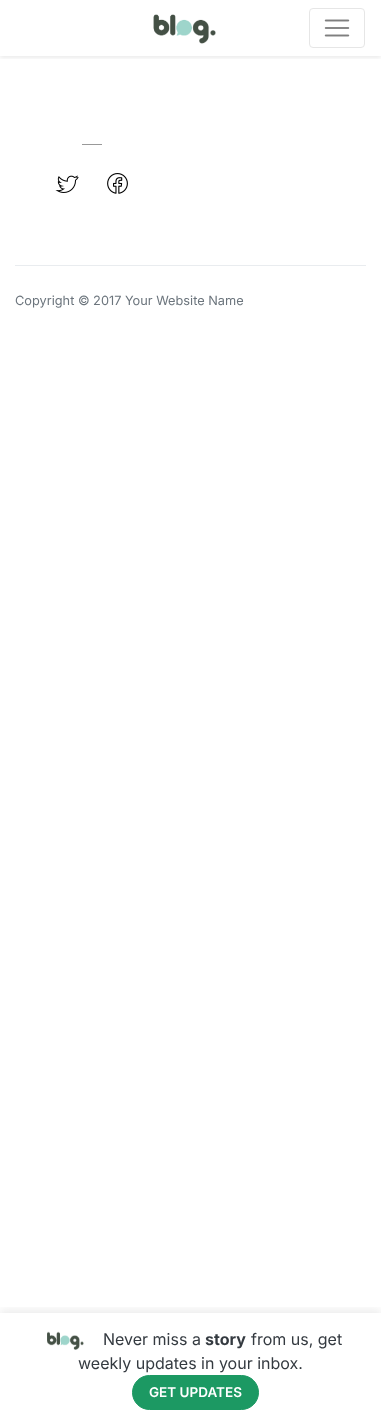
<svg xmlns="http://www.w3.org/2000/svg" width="381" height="1424">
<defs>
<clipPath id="clip1"><rect x="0" y="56" width="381" height="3"/></clipPath>
<clipPath id="clip2"><rect x="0" y="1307" width="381" height="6"/></clipPath>
</defs>
<rect width="100%" height="100%" fill="#fff"/>
<g clip-path="url(#clip1)">
<rect y="2" width="381" height="56" fill="#00000014" filter="blur(2px)"/>
</g>
<image x="153" y="14" width="63" height="30" href="media/1.png"/>
<rect x="309.5" y="8.5" width="55" height="39" rx="3.5" fill="none" stroke="#e6e6e6"/>
<image x="324" y="19" width="26" height="18" href="media/2.png"/>
<rect x="82" y="144" width="20" height="1" fill="#999"/>
<image x="55" y="175" width="24" height="18" href="media/3.png"/>
<image x="107" y="173" width="21" height="21" href="media/4.png"/>
<rect x="15" y="265" width="351" height="1" fill="#e9ecef"/>
<text x="15" y="305" style="font-family:Inter;font-size:12.75px;fill:#6c757d">Copyright © 2017 Your Website Name</text>
<g clip-path="url(#clip2)">
<rect y="1310" width="381" height="111" fill="#00000014" filter="blur(5px)"/>
</g>
<image x="47" y="1331" width="37" height="19" href="media/5.png"/>
<text x="103" y="1345" style="font-family:Inter;font-size:16px;fill:#343a40">Never miss a</text>
<text x="205" y="1345" style="font-family:Inter;font-size:16px;font-weight:bold;fill:#343a40">story</text>
<text x="251" y="1345" style="font-family:Inter;font-size:16px;fill:#343a40">from us, get</text>
<text x="78" y="1369" style="font-family:Inter;font-size:16px;fill:#343a40">weekly updates in your inbox.</text>
<rect x="132.5" y="1375.5" width="126" height="34" rx="17" fill="#1c9963" stroke="#1c9963"/>
<text x="149" y="1397" style="font-family:Inter;font-size:13.5px;font-weight:600;fill:#fff">GET UPDATES</text>
</svg>
